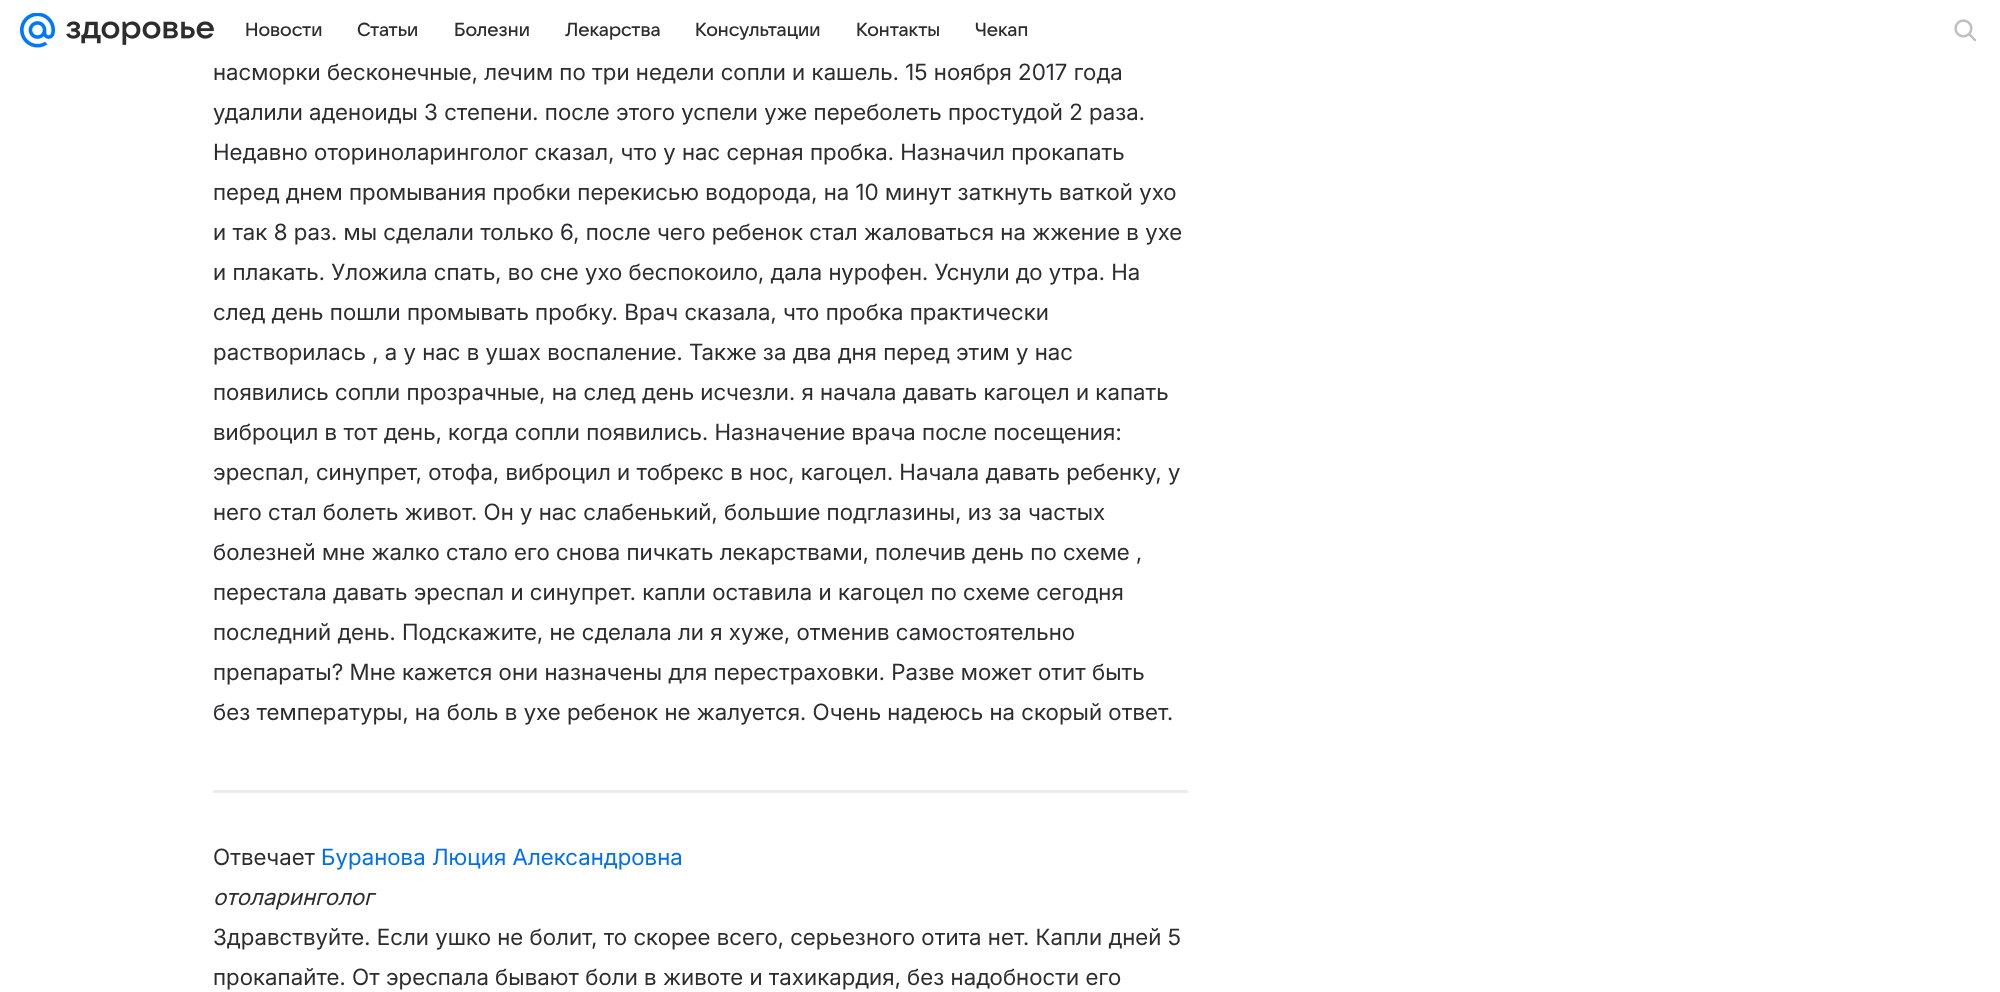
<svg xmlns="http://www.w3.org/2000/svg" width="2000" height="992">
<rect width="100%" height="100%" fill="#fff"/>
<image x="20" y="13" width="35" height="35" href="media/1.png"/>
<image x="66" y="21" width="148" height="24" href="media/2.png"/>
<text x="245" y="36" style="font-family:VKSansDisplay;font-size:18.75px;font-weight:500;fill:#2c2d2e">Новости</text>
<text x="357" y="36" style="font-family:VKSansDisplay;font-size:18.75px;font-weight:500;fill:#2c2d2e">Статьи</text>
<text x="454" y="36" style="font-family:VKSansDisplay;font-size:18.75px;font-weight:500;fill:#2c2d2e">Болезни</text>
<text x="565" y="36" style="font-family:VKSansDisplay;font-size:18.75px;font-weight:500;fill:#2c2d2e">Лекарства</text>
<text x="695" y="36" style="font-family:VKSansDisplay;font-size:18.75px;font-weight:500;fill:#2c2d2e">Консультации</text>
<text x="856" y="36" style="font-family:VKSansDisplay;font-size:18.75px;font-weight:500;fill:#2c2d2e">Контакты</text>
<text x="975" y="36" style="font-family:VKSansDisplay;font-size:18.75px;font-weight:500;fill:#2c2d2e">Чекап</text>
<image x="1954" y="19" width="23" height="23" href="media/3.png"/>
<text x="213" y="80" style="font-family:Inter;font-size:22.5px;letter-spacing:0.07px;fill:#2c2d2e">насморки бесконечные, лечим по три недели сопли и кашель. 15 ноября 2017 года</text>
<text x="213" y="120" style="font-family:Inter;font-size:22.5px;letter-spacing:0.07px;fill:#2c2d2e">удалили аденоиды 3 степени. после этого успели уже переболеть простудой 2 раза.</text>
<text x="213" y="160" style="font-family:Inter;font-size:22.5px;letter-spacing:0.07px;fill:#2c2d2e">Недавно оториноларинголог сказал, что у нас серная пробка. Назначил прокапать</text>
<text x="213" y="200" style="font-family:Inter;font-size:22.5px;letter-spacing:0.07px;fill:#2c2d2e">перед днем промывания пробки перекисью водорода, на 10 минут заткнуть ваткой ухо</text>
<text x="213" y="240" style="font-family:Inter;font-size:22.5px;letter-spacing:0.07px;fill:#2c2d2e">и так 8 раз. мы сделали только 6, после чего ребенок стал жаловаться на жжение в ухе</text>
<text x="213" y="280" style="font-family:Inter;font-size:22.5px;letter-spacing:0.07px;fill:#2c2d2e">и плакать. Уложила спать, во сне ухо беспокоило, дала нурофен. Уснули до утра. На</text>
<text x="213" y="320" style="font-family:Inter;font-size:22.5px;letter-spacing:0.07px;fill:#2c2d2e">след день пошли промывать пробку. Врач сказала, что пробка практически</text>
<text x="213" y="360" style="font-family:Inter;font-size:22.5px;letter-spacing:0.07px;fill:#2c2d2e">растворилась , а у нас в ушах воспаление. Также за два дня перед этим у нас</text>
<text x="213" y="400" style="font-family:Inter;font-size:22.5px;letter-spacing:0.07px;fill:#2c2d2e">появились сопли прозрачные, на след день исчезли. я начала давать кагоцел и капать</text>
<text x="213" y="440" style="font-family:Inter;font-size:22.5px;letter-spacing:0.07px;fill:#2c2d2e">виброцил в тот день, когда сопли появились. Назначение врача после посещения:</text>
<text x="213" y="480" style="font-family:Inter;font-size:22.5px;letter-spacing:0.07px;fill:#2c2d2e">эреспал, синупрет, отофа, виброцил и тобрекс в нос, кагоцел. Начала давать ребенку, у</text>
<text x="213" y="520" style="font-family:Inter;font-size:22.5px;letter-spacing:0.07px;fill:#2c2d2e">него стал болеть живот. Он у нас слабенький, большие подглазины, из за частых</text>
<text x="213" y="560" style="font-family:Inter;font-size:22.5px;letter-spacing:0.07px;fill:#2c2d2e">болезней мне жалко стало его снова пичкать лекарствами, полечив день по схеме ,</text>
<text x="213" y="600" style="font-family:Inter;font-size:22.5px;letter-spacing:0.07px;fill:#2c2d2e">перестала давать эреспал и синупрет. капли оставила и кагоцел по схеме сегодня</text>
<text x="213" y="640" style="font-family:Inter;font-size:22.5px;letter-spacing:0.07px;fill:#2c2d2e">последний день. Подскажите, не сделала ли я хуже, отменив самостоятельно</text>
<text x="213" y="680" style="font-family:Inter;font-size:22.5px;letter-spacing:0.07px;fill:#2c2d2e">препараты? Мне кажется они назначены для перестраховки. Разве может отит быть</text>
<text x="213" y="720" style="font-family:Inter;font-size:22.5px;letter-spacing:0.07px;fill:#2c2d2e">без температуры, на боль в ухе ребенок не жалуется. Очень надеюсь на скорый ответ.</text>
<rect x="213" y="790" width="975" height="3" fill="#ebecef"/>
<text x="213" y="865" style="font-family:Inter;font-size:22.5px;letter-spacing:0.07px;fill:#2c2d2e">Отвечает</text>
<text x="321" y="865" style="font-family:Inter;font-size:22.5px;letter-spacing:0.07px;fill:#0070f0">Буранова Люция Александровна</text>
<text x="213" y="905" style="font-family:Inter;font-size:22.5px;font-style:italic;letter-spacing:0.07px;fill:#2c2d2e">отоларинголог</text>
<text x="213" y="945" style="font-family:Inter;font-size:22.5px;letter-spacing:0.07px;fill:#2c2d2e">Здравствуйте. Если ушко не болит, то скорее всего, серьезного отита нет. Капли дней 5</text>
<text x="213" y="985" style="font-family:Inter;font-size:22.5px;letter-spacing:0.07px;fill:#2c2d2e">прокапайте. От эреспала бывают боли в животе и тахикардия, без надобности его</text>
</svg>
